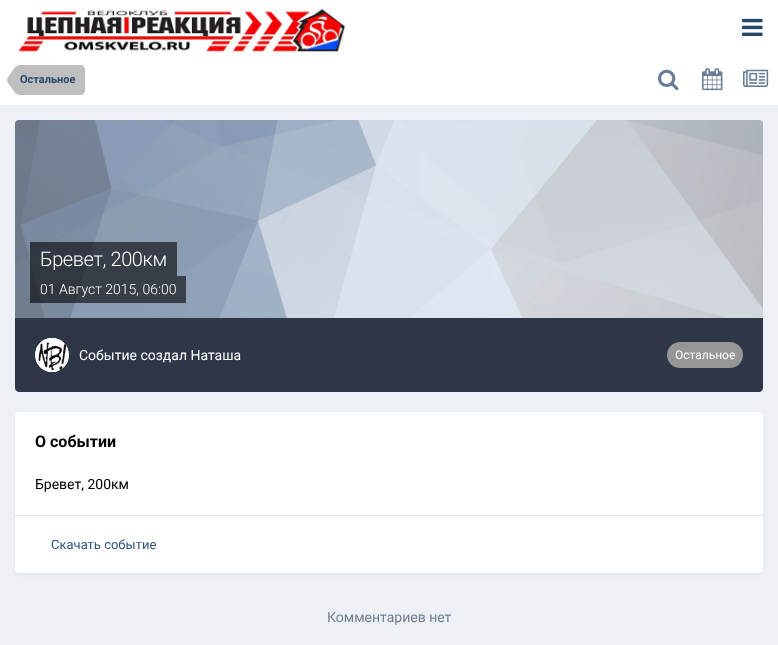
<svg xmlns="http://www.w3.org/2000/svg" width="778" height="645">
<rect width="100%" height="100%" fill="#edf0f4"/>
<rect width="778" height="105" fill="#fff"/>
<image x="18" y="8" width="328" height="45" href="media/1.png"/>
<image x="742" y="18" width="21" height="18" href="media/2.png"/>
<path d="M20 65h60c3 0 5 2 5 5v20c0 3-2 5-5 5h-60z" fill="#bfbfbf"/>
<path d="M20 80v15c-4.5 0-6.5-4.5-9-8c-1.5-2-4-4-4-7zm0 0h-13c0-3 2.5-5 4-7c2.5-3.5 4.5-8 9-8z" fill="#bfbfbf"/>
<text x="20" y="83" style="font-family:Roboto;font-size:11px;font-weight:bold;fill:#26466a">Остальное</text>
<image x="658" y="69" width="21" height="22" href="media/3.png"/>
<image x="702" y="68" width="21" height="23" href="media/4.png"/>
<image x="743" y="69" width="26" height="18" href="media/5.png"/>
<path d="M19 120h740c2 0 4 2 4 4v194h-748v-194c0-2 2-4 4-4z" fill="#99c4ff"/>
<image x="15" y="120" width="748" height="198" href="media/6.png"/>
<rect x="30" y="242" width="147" height="34" fill="#00000099"/>
<text x="40" y="266" style="font-family:Roboto;font-size:20px;font-weight:300;letter-spacing:-0.4px;fill:#fff">Бревет, 200км</text>
<rect x="30" y="276" width="156" height="27" fill="#00000099"/>
<text x="40" y="294" style="font-family:Roboto;font-size:14px;font-weight:300;fill:#fff">01 Август 2015, 06:00</text>
<path d="M15 318h748v70c0 2-2 4-4 4h-740c-2 0-4-2-4-4z" fill="#2d3748"/>
<circle cx="52" cy="355" r="17" fill="#fff"/>
<image x="35" y="338" width="34" height="34" href="media/7.png"/>
<text x="79" y="360" style="font-family:Roboto;font-size:14px;fill:#fff">Событие создал Наташа</text>
<rect x="667" y="342" width="76" height="26" rx="13" fill="#969696"/>
<text x="675" y="359" style="font-family:Roboto;font-size:12px;fill:#fff">Остальное</text>
<rect x="16" y="415" width="746" height="159" rx="3" fill="#2d37481a" filter="blur(2px)"/>
<rect x="15" y="412" width="748" height="161" rx="4" fill="#fff"/>
<text x="35" y="447" style="font-family:Roboto;font-size:16px;font-weight:bold;fill:#000">О событии</text>
<text x="35" y="489" style="font-family:Roboto;font-size:14px;fill:#000">Бревет, 200км</text>
<rect x="15" y="515" width="748" height="1" fill="#e6e6e6"/>
<text x="51" y="549" style="font-family:Roboto;font-size:13px;fill:#2d547f">Скачать событие</text>
<text x="327" y="622" style="font-family:Roboto;font-size:14px;fill:#718096">Комментариев нет</text>
</svg>
